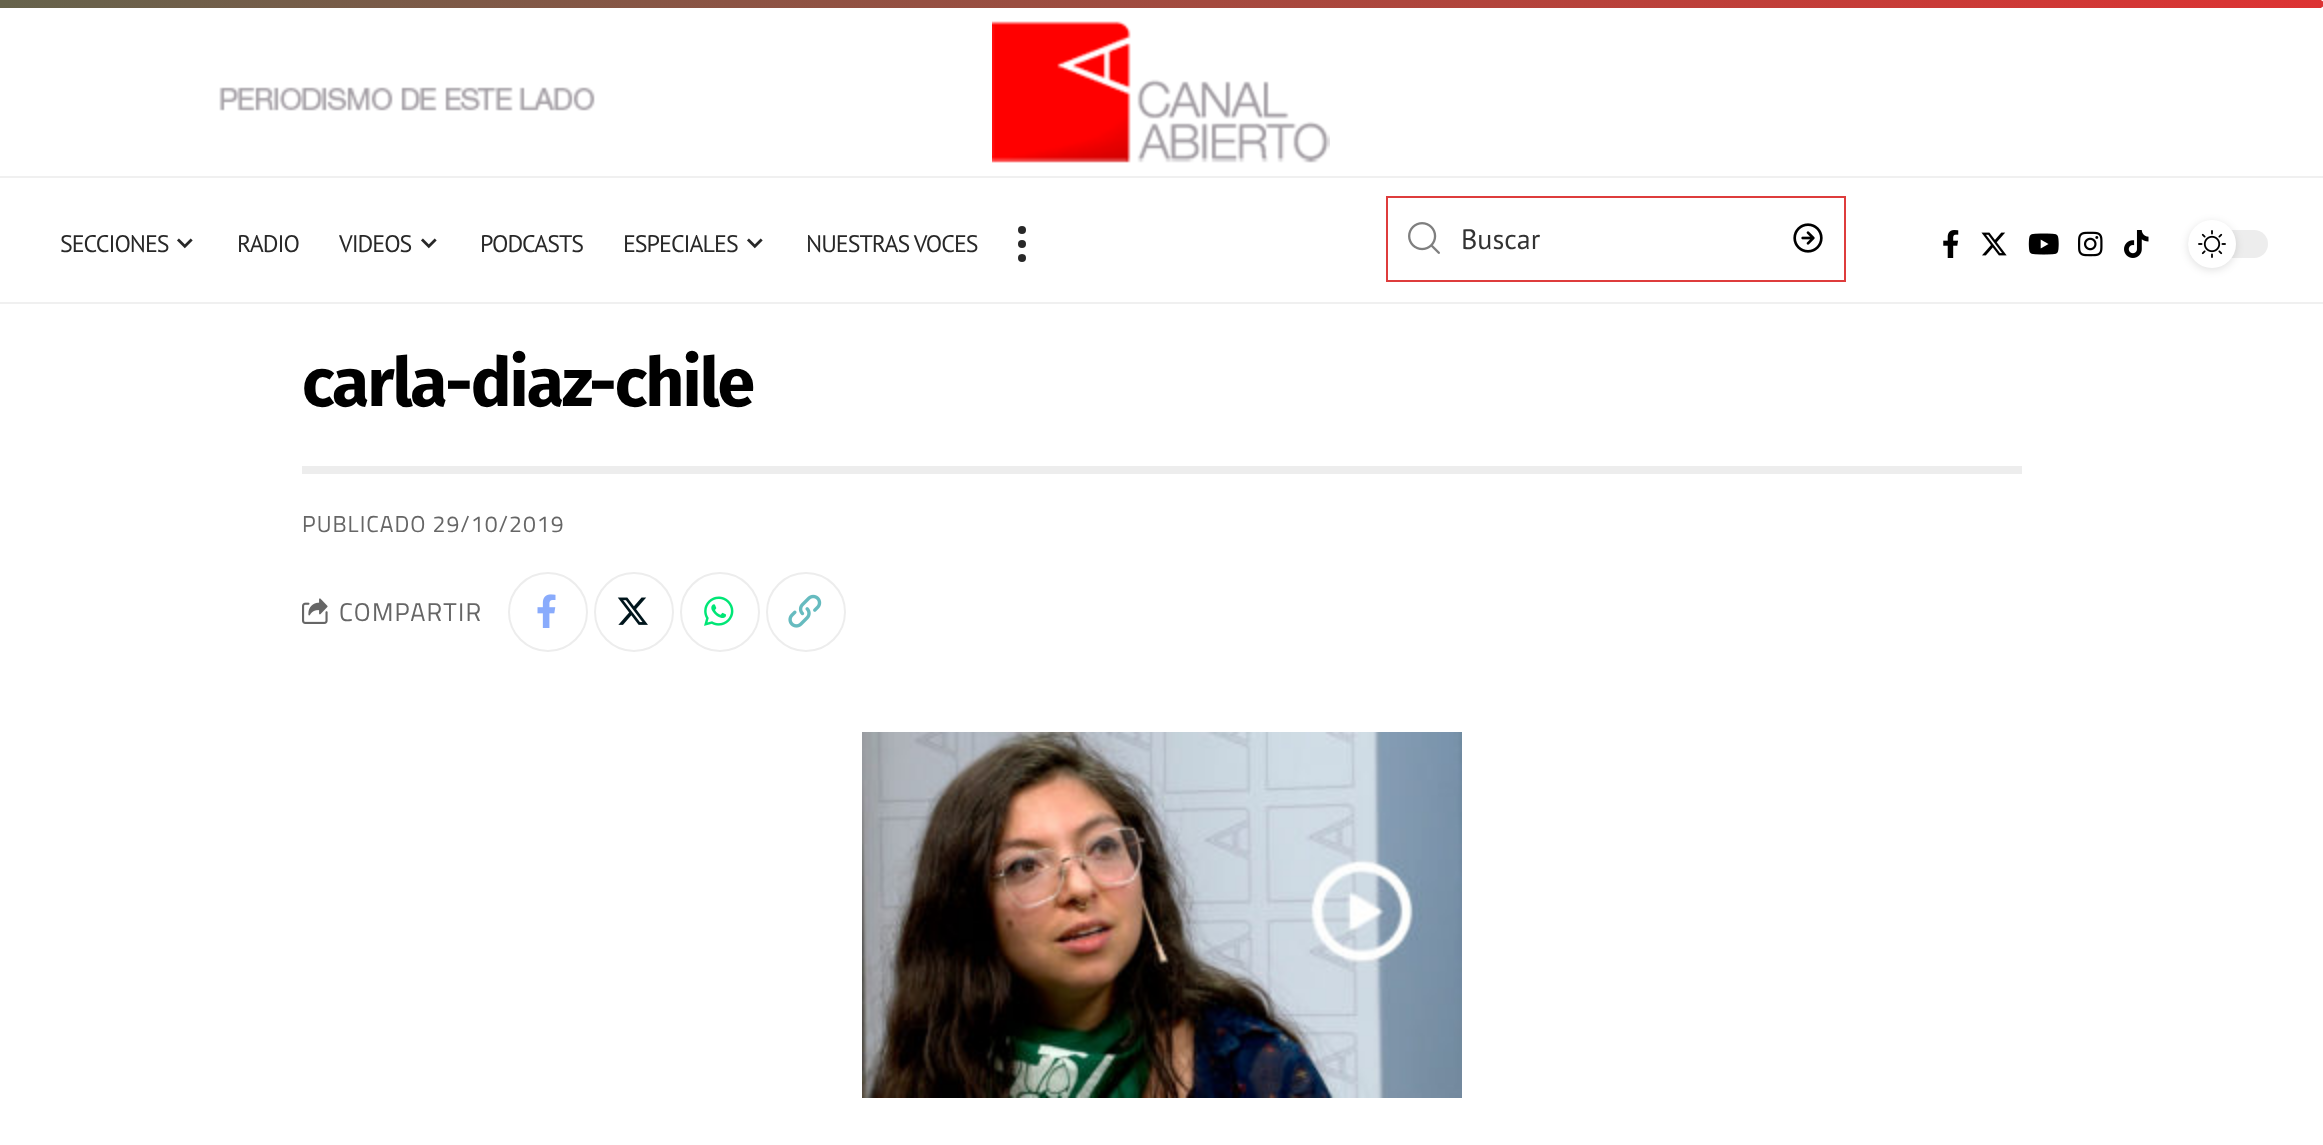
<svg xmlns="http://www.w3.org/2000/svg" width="2323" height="1145">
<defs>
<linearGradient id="g1" gradientUnits="userSpaceOnUse" x1="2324" y1="4" x2="0" y2="4"><stop offset="0" stop-color="#d33"/><stop offset="1" stop-color="#66634c"/></linearGradient>
</defs>
<rect width="100%" height="100%" fill="#fff"/>
<path d="M0 0h2320c2 0 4 2 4 4c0 2-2 4-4 4h-2320z" fill="url(#g1)"/>
<rect y="176" width="2323" height="2" fill="#f0f0f0"/>
<image x="219" y="87" width="376" height="24" href="media/1.png"/>
<image x="992" y="21" width="338" height="142" href="media/2.png"/>
<rect y="302" width="2323" height="2" fill="#f0f0f0"/>
<text x="60" y="252" style="font-family:PT Sans;font-size:24px;letter-spacing:-1px;fill:#282828">SECCIONES</text>
<image x="177" y="238" width="16" height="11" href="media/3.png"/>
<text x="237" y="252" style="font-family:PT Sans;font-size:24px;letter-spacing:-1px;fill:#282828">RADIO</text>
<text x="339" y="252" style="font-family:PT Sans;font-size:24px;letter-spacing:-1px;fill:#282828">VIDEOS</text>
<image x="421" y="238" width="16" height="11" href="media/3.png"/>
<text x="480" y="252" style="font-family:PT Sans;font-size:24px;letter-spacing:-1px;fill:#282828">PODCASTS</text>
<text x="623" y="252" style="font-family:PT Sans;font-size:24px;letter-spacing:-1px;fill:#282828">ESPECIALES</text>
<image x="747" y="238" width="16" height="11" href="media/3.png"/>
<text x="806" y="252" style="font-family:PT Sans;font-size:24px;letter-spacing:-1px;fill:#282828">NUESTRAS VOCES</text>
<circle cx="1022" cy="230" r="4" fill="#282828"/>
<circle cx="1022" cy="244" r="4" fill="#282828"/>
<circle cx="1022" cy="258" r="4" fill="#282828"/>
<rect x="1387" y="197" width="458" height="84" fill="none" stroke="#de3c3c" stroke-width="2"/>
<image x="1408" y="222" width="32" height="32" href="media/4.png"/>
<text x="1461" y="249" style="font-family:PT Sans;font-size:28px;fill:#333">Buscar</text>
<image x="1793" y="223" width="30" height="30" href="media/5.png"/>
<image x="1943" y="230" width="16" height="28" href="media/6.png"/>
<image x="1981" y="232" width="26" height="24" href="media/7.png"/>
<image x="2028" y="233" width="31" height="22" href="media/8.png"/>
<image x="2078" y="231" width="25" height="26" href="media/9.png"/>
<image x="2124" y="230" width="25" height="28" href="media/10.png"/>
<rect x="2188" y="230" width="80" height="28" rx="14" fill="#ededed"/>
<rect x="2188" y="222" width="48" height="48" rx="24" fill="#0000001f" filter="blur(4px)"/>
<circle cx="2212" cy="244" r="24" fill="#fff"/>
<image x="2198" y="230" width="28" height="28" href="media/11.png"/>
<text x="302" y="406" style="font-family:Fira Sans;font-size:68px;font-weight:bold;letter-spacing:-2px;fill:#000">carla-diaz-chile</text>
<rect x="302" y="466" width="1720" height="8" fill="#ededed"/>
<text x="302" y="532" style="font-family:Titillium Web;font-size:23px;letter-spacing:1px;fill:#666">PUBLICADO 29/10/2019</text>
<image x="302" y="598" width="26" height="26" href="media/12.png"/>
<text x="339" y="621" style="font-family:Titillium Web;font-size:25.5px;letter-spacing:1.25px;fill:#666">COMPARTIR</text>
<circle cx="548" cy="612" r="39" fill="none" stroke="#ededed" stroke-width="2"/>
<image x="537" y="594" width="19" height="34" href="media/13.png"/>
<circle cx="634" cy="612" r="39" fill="none" stroke="#ededed" stroke-width="2"/>
<image x="617" y="597" width="31" height="28" href="media/14.png"/>
<circle cx="720" cy="612" r="39" fill="none" stroke="#ededed" stroke-width="2"/>
<image x="704" y="596" width="30" height="30" href="media/15.png"/>
<circle cx="806" cy="612" r="39" fill="none" stroke="#ededed" stroke-width="2"/>
<image x="788" y="594" width="34" height="34" href="media/16.png"/>
<image x="862" y="732" width="600" height="366" href="media/17.png"/>
</svg>
